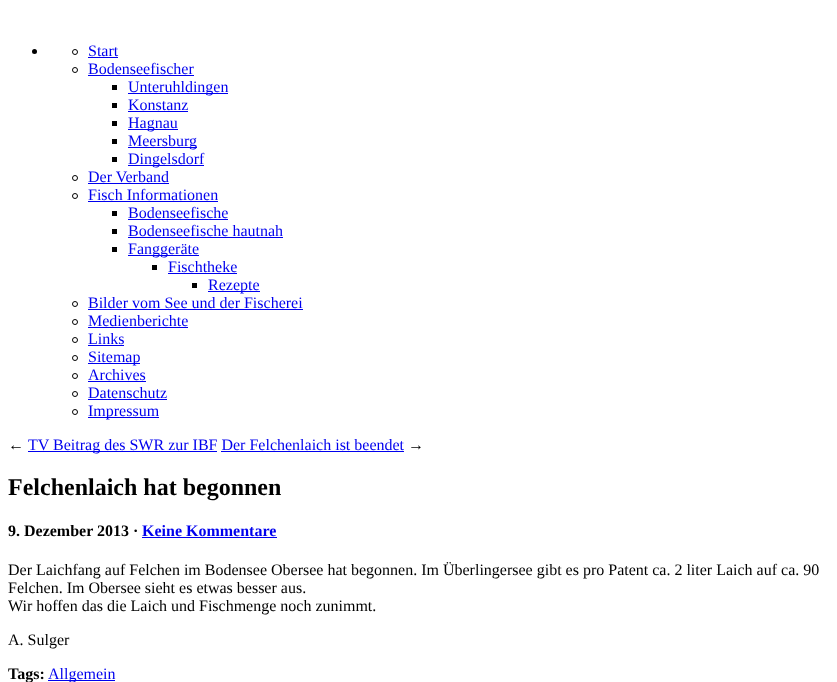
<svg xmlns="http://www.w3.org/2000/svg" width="837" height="682">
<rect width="100%" height="100%" fill="#fff"/>
<circle cx="34.5" cy="51.5" r="2.5" fill="#000"/>
<circle cx="75" cy="52" r="2.5" fill="none" stroke="#000"/>
<text x="88" y="56" style="font-family:Liberation Serif;font-size:16px;fill:#00e">Start</text>
<rect x="88" y="57" width="30" height="1" fill="#00e"/>
<circle cx="75" cy="70" r="2.5" fill="none" stroke="#000"/>
<text x="88" y="74" style="font-family:Liberation Serif;font-size:16px;fill:#00e">Bodenseefischer</text>
<rect x="88" y="75" width="106" height="1" fill="#00e"/>
<rect x="112" y="85" width="5" height="5" fill="#000"/>
<rect x="128" y="93" width="100" height="1" fill="#00e"/>
<text x="128" y="92" style="font-family:Liberation Serif;font-size:16px;fill:#00e">Unteruhldingen</text>
<rect x="112" y="103" width="5" height="5" fill="#000"/>
<text x="128" y="110" style="font-family:Liberation Serif;font-size:16px;fill:#00e">Konstanz</text>
<rect x="128" y="111" width="60" height="1" fill="#00e"/>
<rect x="112" y="121" width="5" height="5" fill="#000"/>
<rect x="128" y="129" width="50" height="1" fill="#00e"/>
<text x="128" y="128" style="font-family:Liberation Serif;font-size:16px;fill:#00e">Hagnau</text>
<rect x="112" y="139" width="5" height="5" fill="#000"/>
<rect x="128" y="147" width="69" height="1" fill="#00e"/>
<text x="128" y="146" style="font-family:Liberation Serif;font-size:16px;fill:#00e">Meersburg</text>
<rect x="112" y="157" width="5" height="5" fill="#000"/>
<rect x="128" y="165" width="76" height="1" fill="#00e"/>
<text x="128" y="164" style="font-family:Liberation Serif;font-size:16px;fill:#00e">Dingelsdorf</text>
<circle cx="75" cy="178" r="2.5" fill="none" stroke="#000"/>
<text x="88" y="182" style="font-family:Liberation Serif;font-size:16px;fill:#00e">Der Verband</text>
<rect x="88" y="183" width="81" height="1" fill="#00e"/>
<circle cx="75" cy="196" r="2.5" fill="none" stroke="#000"/>
<text x="88" y="200" style="font-family:Liberation Serif;font-size:16px;fill:#00e">Fisch Informationen</text>
<rect x="88" y="201" width="130" height="1" fill="#00e"/>
<rect x="112" y="211" width="5" height="5" fill="#000"/>
<text x="128" y="218" style="font-family:Liberation Serif;font-size:16px;fill:#00e">Bodenseefische</text>
<rect x="128" y="219" width="100" height="1" fill="#00e"/>
<rect x="112" y="229" width="5" height="5" fill="#000"/>
<text x="128" y="236" style="font-family:Liberation Serif;font-size:16px;fill:#00e">Bodenseefische hautnah</text>
<rect x="128" y="237" width="155" height="1" fill="#00e"/>
<rect x="112" y="247" width="5" height="5" fill="#000"/>
<rect x="128" y="255" width="71" height="1" fill="#00e"/>
<text x="128" y="254" style="font-family:Liberation Serif;font-size:16px;fill:#00e">Fanggeräte</text>
<rect x="152" y="265" width="5" height="5" fill="#000"/>
<text x="168" y="272" style="font-family:Liberation Serif;font-size:16px;fill:#00e">Fischtheke</text>
<rect x="168" y="273" width="69" height="1" fill="#00e"/>
<rect x="192" y="283" width="5" height="5" fill="#000"/>
<rect x="208" y="291" width="52" height="1" fill="#00e"/>
<text x="208" y="290" style="font-family:Liberation Serif;font-size:16px;fill:#00e">Rezepte</text>
<circle cx="75" cy="304" r="2.5" fill="none" stroke="#000"/>
<text x="88" y="308" style="font-family:Liberation Serif;font-size:16px;fill:#00e">Bilder vom See und der Fischerei</text>
<rect x="88" y="309" width="215" height="1" fill="#00e"/>
<circle cx="75" cy="322" r="2.5" fill="none" stroke="#000"/>
<text x="88" y="326" style="font-family:Liberation Serif;font-size:16px;fill:#00e">Medienberichte</text>
<rect x="88" y="327" width="100" height="1" fill="#00e"/>
<circle cx="75" cy="340" r="2.5" fill="none" stroke="#000"/>
<text x="88" y="344" style="font-family:Liberation Serif;font-size:16px;fill:#00e">Links</text>
<rect x="88" y="345" width="36" height="1" fill="#00e"/>
<circle cx="75" cy="358" r="2.5" fill="none" stroke="#000"/>
<rect x="88" y="363" width="52" height="1" fill="#00e"/>
<text x="88" y="362" style="font-family:Liberation Serif;font-size:16px;fill:#00e">Sitemap</text>
<circle cx="75" cy="376" r="2.5" fill="none" stroke="#000"/>
<text x="88" y="380" style="font-family:Liberation Serif;font-size:16px;fill:#00e">Archives</text>
<rect x="88" y="381" width="58" height="1" fill="#00e"/>
<circle cx="75" cy="394" r="2.5" fill="none" stroke="#000"/>
<text x="88" y="398" style="font-family:Liberation Serif;font-size:16px;fill:#00e">Datenschutz</text>
<rect x="88" y="399" width="79" height="1" fill="#00e"/>
<circle cx="75" cy="412" r="2.5" fill="none" stroke="#000"/>
<rect x="88" y="417" width="71" height="1" fill="#00e"/>
<text x="88" y="416" style="font-family:Liberation Serif;font-size:16px;fill:#00e">Impressum</text>
<text x="8" y="450" style="font-family:Liberation Serif;font-size:16px;fill:#000">←</text>
<rect x="28" y="451" width="189" height="1" fill="#00e"/>
<text x="28" y="450" style="font-family:Liberation Serif;font-size:16px;fill:#00e">TV Beitrag des SWR zur IBF Der Felchenlaich ist beendet</text>
<text x="408" y="450" style="font-family:Liberation Serif;font-size:16px;fill:#000">→</text>
<rect x="221" y="451" width="183" height="1" fill="#00e"/>
<text x="8" y="495" style="font-family:Liberation Serif;font-size:24px;font-weight:bold;fill:#000">Felchenlaich hat begonnen</text>
<text x="8" y="536" style="font-family:Liberation Serif;font-size:16px;font-weight:bold;fill:#000">9. Dezember 2013 ·</text>
<text x="142" y="536" style="font-family:Liberation Serif;font-size:16px;font-weight:bold;fill:#00e">Keine Kommentare</text>
<rect x="142" y="537" width="135" height="1" fill="#00e"/>
<text x="8" y="575" style="font-family:Liberation Serif;font-size:16px;fill:#000">Der Laichfang auf Felchen im Bodensee Obersee hat begonnen. Im Überlingersee gibt es pro Patent ca. 2 liter Laich auf ca. 90</text>
<text x="8" y="593" style="font-family:Liberation Serif;font-size:16px;fill:#000">Felchen. Im Obersee sieht es etwas besser aus.</text>
<text x="8" y="611" style="font-family:Liberation Serif;font-size:16px;fill:#000">Wir hoffen das die Laich und Fischmenge noch zunimmt.</text>
<text x="8" y="645" style="font-family:Liberation Serif;font-size:16px;fill:#000">A. Sulger</text>
<text x="8" y="679" style="font-family:Liberation Serif;font-size:16px;font-weight:bold;fill:#000">Tags:</text>
<rect x="48" y="680" width="67" height="1" fill="#00e"/>
<text x="48" y="679" style="font-family:Liberation Serif;font-size:16px;fill:#00e">Allgemein</text>
</svg>
